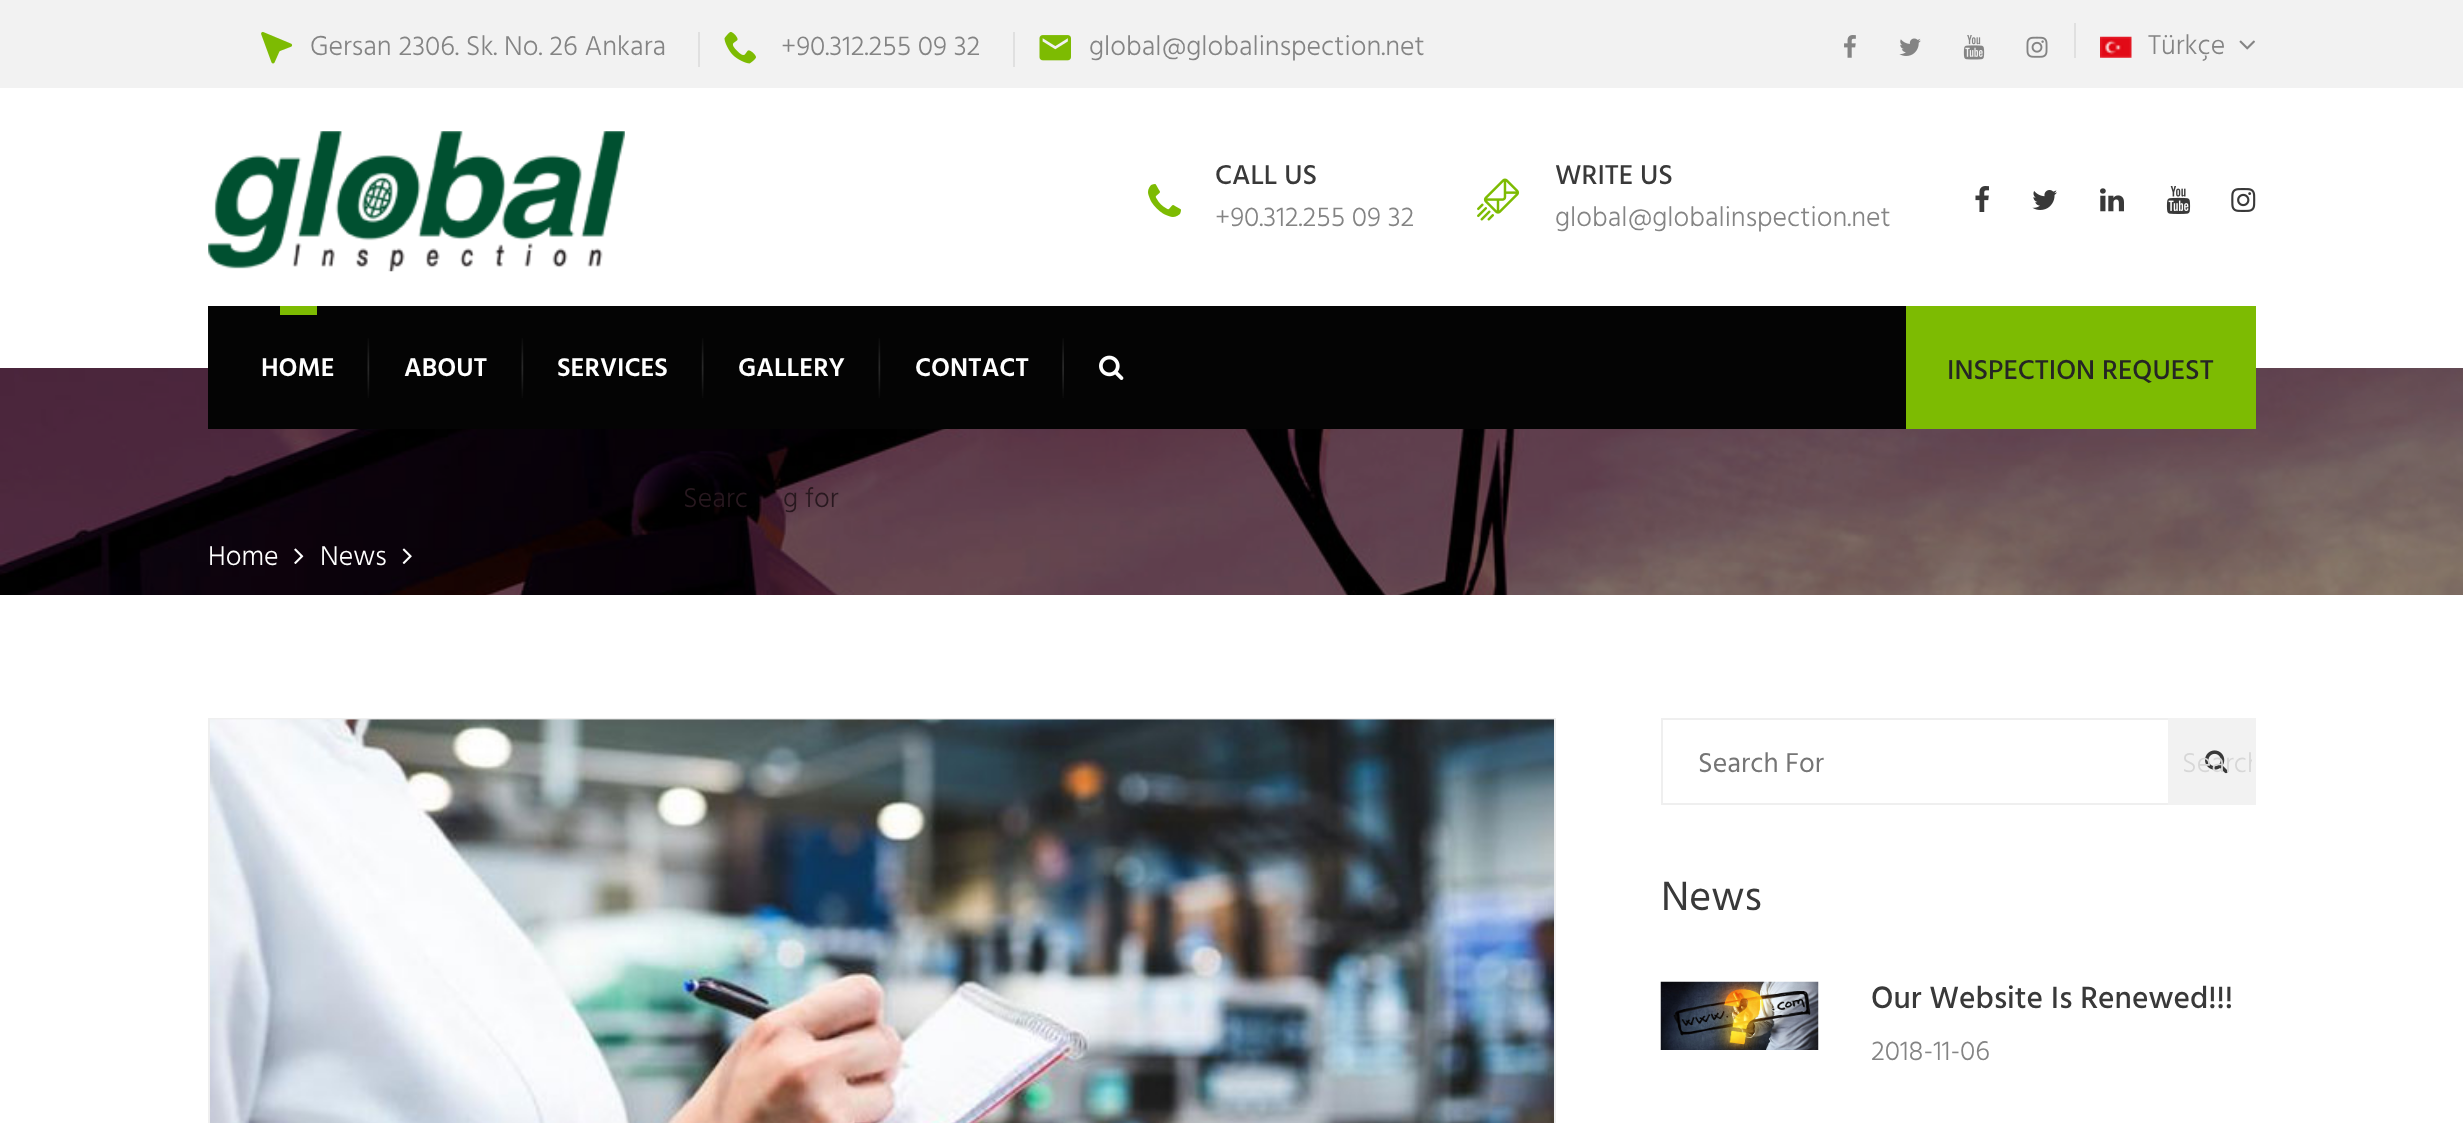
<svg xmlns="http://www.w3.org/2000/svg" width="2463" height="1123">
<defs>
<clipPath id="clip1"><rect x="2172" y="721" width="80" height="81"/></clipPath>
</defs>
<rect width="100%" height="100%" fill="#fff"/>
<rect width="2463" height="88" fill="#f2f2f2"/>
<image x="261" y="31" width="32" height="33" href="media/1.png"/>
<text x="310" y="55" style="font-family:Hind Vadodara;font-size:28px;font-weight:300;fill:#848484">Gersan 2306. Sk. No. 26 Ankara</text>
<rect x="698" y="32" width="2" height="35" fill="#e0e0e0"/>
<image x="724" y="31" width="32" height="33" href="media/2.png"/>
<text x="781" y="55" style="font-family:Hind Vadodara;font-size:28px;font-weight:300;fill:#848484">+90.312.255 09 32</text>
<rect x="1013" y="32" width="2" height="35" fill="#e0e0e0"/>
<image x="1039" y="35" width="32" height="26" href="media/3.png"/>
<text x="1089" y="55" style="font-family:Hind Vadodara;font-size:28px;font-weight:300;fill:#848484">global@globalinspection.net</text>
<image x="1844" y="35" width="12" height="23" href="media/4.png"/>
<image x="1899" y="38" width="22" height="18" href="media/5.png"/>
<image x="1963" y="35" width="22" height="25" href="media/6.png"/>
<image x="2026" y="36" width="22" height="22" href="media/7.png"/>
<rect x="2074" y="23" width="2" height="35" fill="#e0e0e0"/>
<image x="2100" y="36" width="32" height="22" href="media/8.png"/>
<text x="2148" y="54" style="font-family:Hind Vadodara;font-size:28px;font-weight:300;fill:#848484">Türkçe</text>
<image x="2239" y="40" width="16" height="10" href="media/9.png"/>
<image x="208" y="131" width="417" height="141" href="media/10.png"/>
<image x="1148" y="184" width="33" height="33" href="media/11.png"/>
<text x="1215" y="184" style="font-family:Hind;font-size:28px;font-weight:500;fill:#393939">CALL US</text>
<text x="1215" y="226" style="font-family:Hind Vadodara;font-size:28px;font-weight:300;fill:#848484">+90.312.255 09 32</text>
<image x="1477" y="178" width="43" height="43" href="media/12.png"/>
<text x="1555" y="184" style="font-family:Hind;font-size:28px;font-weight:500;fill:#393939">WRITE US</text>
<text x="1555" y="226" style="font-family:Hind Vadodara;font-size:28px;font-weight:300;fill:#848484">global@globalinspection.net</text>
<image x="1975" y="186" width="14" height="26" href="media/13.png"/>
<image x="2032" y="190" width="25" height="20" href="media/14.png"/>
<image x="2100" y="188" width="24" height="24" href="media/15.png"/>
<image x="2166" y="186" width="25" height="28" href="media/16.png"/>
<image x="2231" y="188" width="25" height="24" href="media/17.png"/>
<image x="0" y="368" width="2463" height="227" href="media/22.png"/>
<rect x="208" y="306" width="1698" height="123" fill="#040404"/>
<rect x="280" y="306" width="37" height="9" fill="#7dbb02"/>
<image x="367" y="338" width="3" height="60" href="media/18.png"/>
<text x="261" y="376" style="font-family:Hind Vadodara;font-size:26.25px;font-weight:600;fill:#fff">HOME</text>
<image x="521" y="338" width="3" height="60" href="media/18.png"/>
<text x="404" y="376" style="font-family:Hind Vadodara;font-size:26.25px;font-weight:600;fill:#fff">ABOUT</text>
<image x="701" y="338" width="3" height="60" href="media/19.png"/>
<text x="557" y="376" style="font-family:Hind Vadodara;font-size:26.25px;font-weight:600;fill:#fff">SERVICES</text>
<image x="878" y="338" width="3" height="60" href="media/18.png"/>
<text x="738" y="376" style="font-family:Hind Vadodara;font-size:26.25px;font-weight:600;fill:#fff">GALLERY</text>
<image x="1062" y="338" width="2" height="60" href="media/20.png"/>
<text x="915" y="376" style="font-family:Hind Vadodara;font-size:26.25px;font-weight:600;fill:#fff">CONTACT</text>
<image x="1099" y="355" width="25" height="25" href="media/21.png"/>
<text x="683" y="507" style="font-family:Hind Vadodara;font-size:28px;font-weight:300;fill:#28181f">Searc</text>
<text x="783" y="507" style="font-family:Hind Vadodara;font-size:28px;font-weight:300;fill:#28181f">g for</text>
<rect x="1906" y="306" width="350" height="123" fill="#7dbb02"/>
<text x="1947" y="379" style="font-family:Hind Vadodara;font-size:28px;font-weight:500;fill:#252525">INSPECTION REQUEST</text>
<text x="208" y="565" style="font-family:Hind Vadodara;font-size:28px;font-weight:300;fill:#fff">Home</text>
<image x="294" y="548" width="10" height="16" href="media/23.png"/>
<text x="320" y="565" style="font-family:Hind Vadodara;font-size:28px;font-weight:300;fill:#fff">News</text>
<image x="402" y="548" width="10" height="16" href="media/24.png"/>
<rect x="209" y="719" width="1346" height="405" fill="none" stroke="#efefef" stroke-width="2"/>
<image x="210" y="719" width="1344" height="404" href="media/25.png"/>
<rect x="2168" y="718" width="88" height="87" fill="#f2f2f2"/>
<rect x="1661" y="718" width="507" height="2" fill="#efefef"/>
<rect x="1661" y="803" width="507" height="2" fill="#efefef"/>
<rect x="1661" y="718" width="2" height="87" fill="#efefef"/>
<text x="1698" y="772" style="font-family:Hind Vadodara;font-size:28px;fill:#757575">Search For</text>
<image x="2205" y="750" width="23" height="24" href="media/26.png"/>
<g clip-path="url(#clip1)">
<text x="2182" y="772" style="font-family:Hind Vadodara;font-size:28px;font-weight:300;fill:#d7d7d7">Search</text>
</g>
<text x="1661" y="910" style="font-family:Hind;font-size:42px;fill:#393939">News</text>
<image x="1660" y="981" width="159" height="69" href="media/27.png"/>
<text x="1871" y="1008" style="font-family:Hind;font-size:31.5px;font-weight:500;fill:#393939">Our Website Is Renewed!!!</text>
<text x="1871" y="1060" style="font-family:Hind Vadodara;font-size:28px;font-weight:300;fill:#848484">2018-11-06</text>
</svg>
